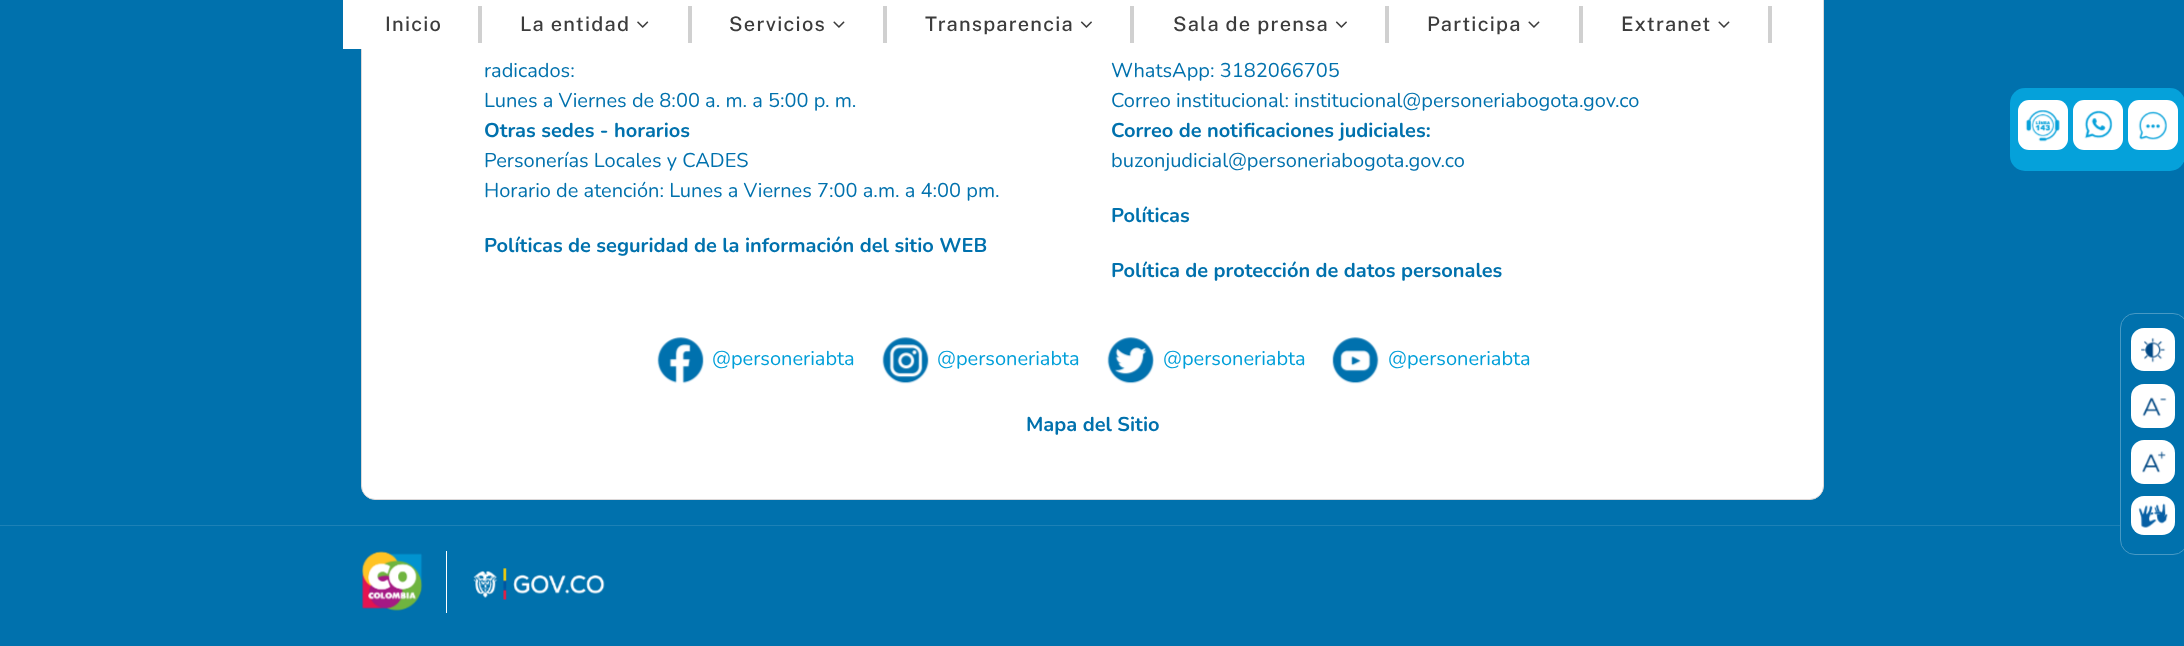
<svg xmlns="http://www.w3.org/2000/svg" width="2184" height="646">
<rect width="100%" height="100%" fill="#0071ad"/>
<rect x="361.5" y="-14.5" width="1462" height="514" rx="13.5" fill="#fff" stroke="#dcd8d8"/>
<rect x="343" width="19" height="49" fill="#fff"/>
<rect x="478" y="6" width="4" height="37" fill="#d0d0d0"/>
<text x="385" y="31" style="font-family:Public Sans;font-size:20px;font-weight:500;letter-spacing:1.25px;fill:#3c3c3c">Inicio</text>
<rect x="688" y="6" width="4" height="37" fill="#d0d0d0"/>
<text x="520" y="31" style="font-family:Public Sans;font-size:20px;font-weight:500;letter-spacing:1.25px;fill:#3c3c3c">La entidad</text>
<image x="637" y="21" width="12" height="7" href="media/1.png"/>
<rect x="883" y="6" width="4" height="37" fill="#d0d0d0"/>
<text x="729" y="31" style="font-family:Public Sans;font-size:20px;font-weight:500;letter-spacing:1.25px;fill:#3c3c3c">Servicios</text>
<image x="833" y="21" width="12" height="7" href="media/2.png"/>
<rect x="1130" y="6" width="4" height="37" fill="#d0d0d0"/>
<text x="925" y="31" style="font-family:Public Sans;font-size:20px;font-weight:500;letter-spacing:1.25px;fill:#3c3c3c">Transparencia</text>
<image x="1080" y="21" width="12" height="7" href="media/3.png"/>
<rect x="1385" y="6" width="4" height="37" fill="#d0d0d0"/>
<text x="1173" y="31" style="font-family:Public Sans;font-size:20px;font-weight:500;letter-spacing:1.25px;fill:#3c3c3c">Sala de prensa</text>
<image x="1335" y="21" width="12" height="7" href="media/3.png"/>
<rect x="1579" y="6" width="4" height="37" fill="#d0d0d0"/>
<text x="1427" y="31" style="font-family:Public Sans;font-size:20px;font-weight:500;letter-spacing:1.25px;fill:#3c3c3c">Participa</text>
<image x="1528" y="21" width="12" height="7" href="media/2.png"/>
<rect x="1768" y="6" width="4" height="37" fill="#d0d0d0"/>
<text x="1621" y="31" style="font-family:Public Sans;font-size:20px;font-weight:500;letter-spacing:1.25px;fill:#3c3c3c">Extranet</text>
<image x="1718" y="21" width="12" height="7" href="media/2.png"/>
<text x="484" y="77" style="font-family:Nunito;font-size:20px;fill:#0071ad">radicados:</text>
<text x="484" y="107" style="font-family:Nunito;font-size:20px;fill:#0071ad">Lunes a Viernes de 8:00 a. m. a 5:00 p. m.</text>
<text x="1111" y="77" style="font-family:Nunito;font-size:20px;fill:#0071ad">WhatsApp: 3182066705</text>
<text x="1111" y="107" style="font-family:Nunito;font-size:20px;fill:#0071ad">Correo institucional: institucional@personeriabogota.gov.co</text>
<text x="484" y="137" style="font-family:Nunito;font-size:20px;font-weight:bold;fill:#0071ad">Otras sedes - horarios</text>
<text x="484" y="167" style="font-family:Nunito;font-size:20px;fill:#0071ad">Personerías Locales y CADES</text>
<text x="484" y="197" style="font-family:Nunito;font-size:20px;fill:#0071ad">Horario de atención: Lunes a Viernes 7:00 a.m. a 4:00 pm.</text>
<text x="484" y="252" style="font-family:Nunito;font-size:20px;font-weight:bold;fill:#0071ad">Políticas de seguridad de la información del sitio WEB</text>
<text x="1111" y="137" style="font-family:Nunito;font-size:20px;font-weight:bold;fill:#0071ad">Correo de notificaciones judiciales:</text>
<text x="1111" y="167" style="font-family:Nunito;font-size:20px;fill:#0071ad">buzonjudicial@personeriabogota.gov.co</text>
<text x="1111" y="222" style="font-family:Nunito;font-size:20px;font-weight:bold;fill:#0071ad">Políticas</text>
<text x="1111" y="277" style="font-family:Nunito;font-size:20px;font-weight:bold;fill:#0071ad">Política de protección de datos personales</text>
<image x="657" y="337" width="47" height="47" href="media/4.png"/>
<text x="712" y="365" style="font-family:Nunito;font-size:20px;fill:#009fd9">@personeriabta</text>
<image x="882" y="337" width="47" height="47" href="media/5.png"/>
<text x="937" y="365" style="font-family:Nunito;font-size:20px;fill:#009fd9">@personeriabta</text>
<image x="1107" y="337" width="47" height="47" href="media/6.png"/>
<text x="1163" y="365" style="font-family:Nunito;font-size:20px;fill:#009fd9">@personeriabta</text>
<image x="1332" y="337" width="47" height="47" href="media/7.png"/>
<text x="1388" y="365" style="font-family:Nunito;font-size:20px;fill:#009fd9">@personeriabta</text>
<text x="1026" y="431" style="font-family:Nunito;font-size:20px;font-weight:bold;fill:#0071ad">Mapa del Sitio</text>
<rect x="2010" y="88" width="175" height="83" rx="15" fill="#05a1da"/>
<rect x="2018" y="100" width="50" height="50" rx="11" fill="#fff"/>
<image x="2025" y="110" width="35" height="32" href="media/8.png"/>
<rect x="2073" y="100" width="50" height="50" rx="11" fill="#fff"/>
<image x="2084" y="110" width="29" height="29" href="media/9.png"/>
<rect x="2128" y="100" width="50" height="50" rx="11" fill="#fff"/>
<image x="2138" y="111" width="30" height="29" href="media/10.png"/>
<rect x="2120.5" y="313.5" width="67" height="241" rx="14.5" fill="none" stroke="#4799c4"/>
<rect x="2131" y="328" width="44" height="43" rx="13" fill="#fff"/>
<image x="2141" y="337" width="25" height="26" href="media/11.png"/>
<rect x="2131" y="384" width="44" height="44" rx="13" fill="#fff"/>
<image x="2142" y="397" width="25" height="20" href="media/12.png"/>
<rect x="2131" y="440" width="44" height="44" rx="13" fill="#fff"/>
<image x="2142" y="451" width="24" height="22" href="media/13.png"/>
<rect x="2131" y="496" width="44" height="39" rx="13" fill="#fff"/>
<image x="2138" y="503" width="30" height="25" href="media/14.png"/>
<rect y="525" width="2120" height="1" fill="#1d81b6"/>
<rect x="446" y="551" width="1" height="62" fill="#fff"/>
<image x="362" y="551" width="61" height="60" href="media/15.png"/>
<image x="473" y="568" width="132" height="32" href="media/16.png"/>
</svg>
